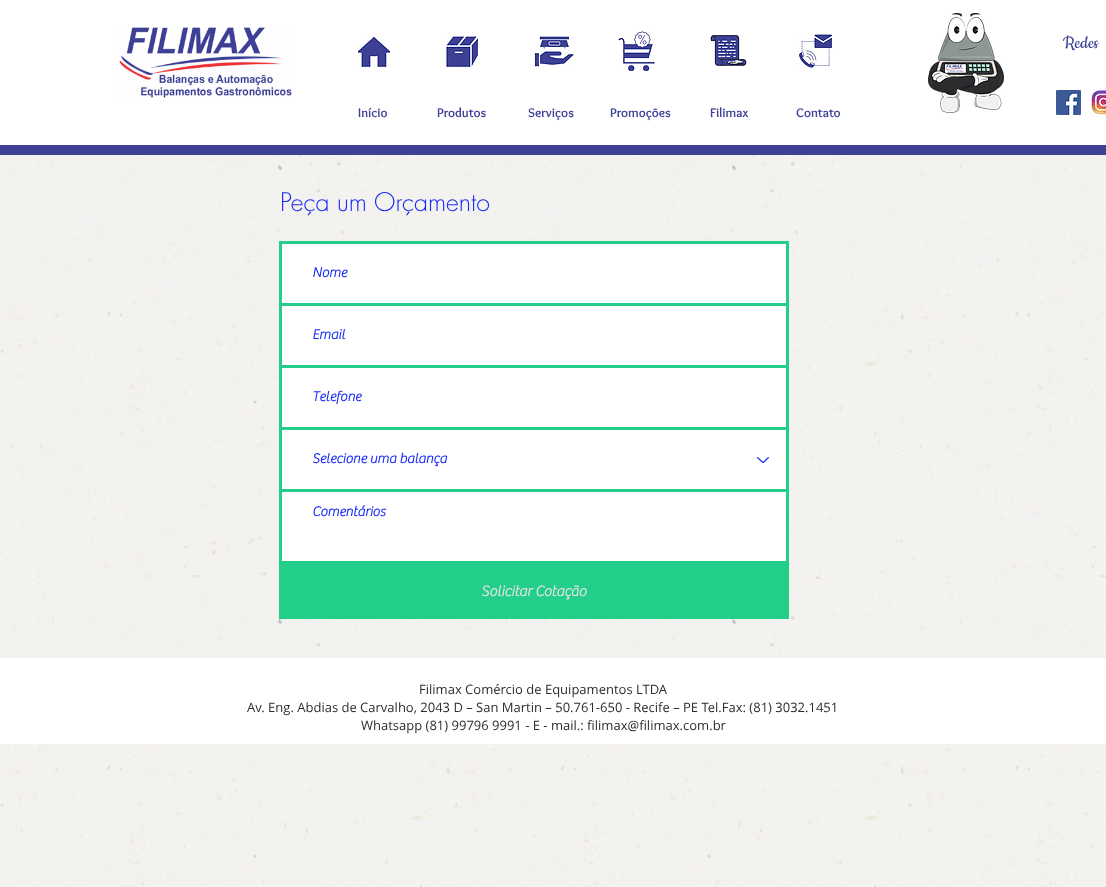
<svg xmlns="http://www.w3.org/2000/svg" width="1106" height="887">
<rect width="100%" height="100%" fill="#fff"/>
<image x="119" y="27" width="173" height="71" href="media/1.png"/>
<image x="358" y="37" width="32" height="30" href="media/2.png"/>
<image x="446" y="36" width="32" height="31" href="media/3.png"/>
<image x="534" y="36" width="40" height="31" href="media/4.png"/>
<image x="618" y="31" width="37" height="40" href="media/5.png"/>
<image x="710" y="35" width="37" height="31" href="media/6.png"/>
<image x="799" y="34" width="34" height="34" href="media/7.png"/>
<image x="928" y="13" width="76" height="100" href="media/8.png"/>
<text x="1063" y="48" style="font-family:Cookie;font-size:20px;fill:#3e4095">Redes</text>
<text x="358" y="117" style="font-family:Overlock;font-size:13px;font-weight:bold;fill:#3e4095">Início</text>
<text x="437" y="117" style="font-family:Overlock;font-size:13px;font-weight:bold;fill:#3e4095">Produtos</text>
<text x="528" y="117" style="font-family:Overlock;font-size:13px;font-weight:bold;fill:#3e4095">Serviços</text>
<text x="610" y="117" style="font-family:Overlock;font-size:13px;font-weight:bold;fill:#3e4095">Promoções</text>
<text x="710" y="117" style="font-family:Overlock;font-size:13px;font-weight:bold;fill:#3e4095">Filimax</text>
<text x="796" y="117" style="font-family:Overlock;font-size:13px;font-weight:bold;fill:#3e4095">Contato</text>
<image x="1056" y="90" width="25" height="25" href="media/9.png"/>
<image x="1091" y="90" width="15" height="25" href="media/10.png"/>
<rect y="145" width="1106" height="10" fill="#3e4095"/>
<image x="0" y="155" width="1106" height="732" href="media/12.png"/>
<text x="280" y="211" style="font-family:futura;font-size:25px;font-weight:300;fill:#1a2df3">Peça um Orçamento</text>
<rect x="280.5" y="242.5" width="507" height="62" fill="#fff" stroke="#22ce88" stroke-width="3"/>
<text x="312" y="277" style="font-family:'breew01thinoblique';font-size:14px;font-weight:bold;fill:#1a2df3">Nome</text>
<rect x="280.5" y="304.5" width="507" height="62" fill="#fff" stroke="#22ce88" stroke-width="3"/>
<text x="312" y="339" style="font-family:'breew01thinoblique';font-size:14px;font-weight:bold;fill:#1a2df3">Email</text>
<rect x="280.5" y="366.5" width="507" height="62" fill="#fff" stroke="#22ce88" stroke-width="3"/>
<text x="312" y="401" style="font-family:'breew01thinoblique';font-size:14px;font-weight:bold;fill:#1a2df3">Telefone</text>
<rect x="280.5" y="428.5" width="507" height="62" fill="#fff" stroke="#22ce88" stroke-width="3"/>
<text x="312" y="463" style="font-family:'breew01thinoblique';font-size:14px;font-weight:bold;fill:#1a2df3">Selecione uma balança</text>
<image x="757" y="457" width="12" height="6" href="media/11.png"/>
<rect x="280.5" y="490.5" width="507" height="72" fill="#fff" stroke="#22ce88" stroke-width="3"/>
<text x="312" y="516" style="font-family:'breew01thinoblique';font-size:14px;font-weight:bold;fill:#1a2df3">Comentários</text>
<rect x="279" y="564" width="510" height="55" fill="#22ce88"/>
<text x="481" y="596" style="font-family:'breew01thinoblique';font-size:15px;font-weight:bold;fill:#e3e3e3">Solicitar Cotação</text>
<rect y="658" width="1106" height="86" fill="#fff"/>
<text x="419" y="694" style="font-family:Open Sans;font-size:13px;fill:#2d2d2d">Filimax Comércio de Equipamentos LTDA</text>
<text x="247" y="712" style="font-family:Open Sans;font-size:13px;fill:#2d2d2d">Av. Eng. Abdias de Carvalho, 2043 D – San Martin – 50.761-650 - Recife – PE Tel.Fax: (81) 3032.1451</text>
<text x="361" y="730" style="font-family:Open Sans;font-size:13px;fill:#2d2d2d">Whatsapp (81) 99796 9991 - E - mail.: filimax@filimax.com.br</text>
</svg>
